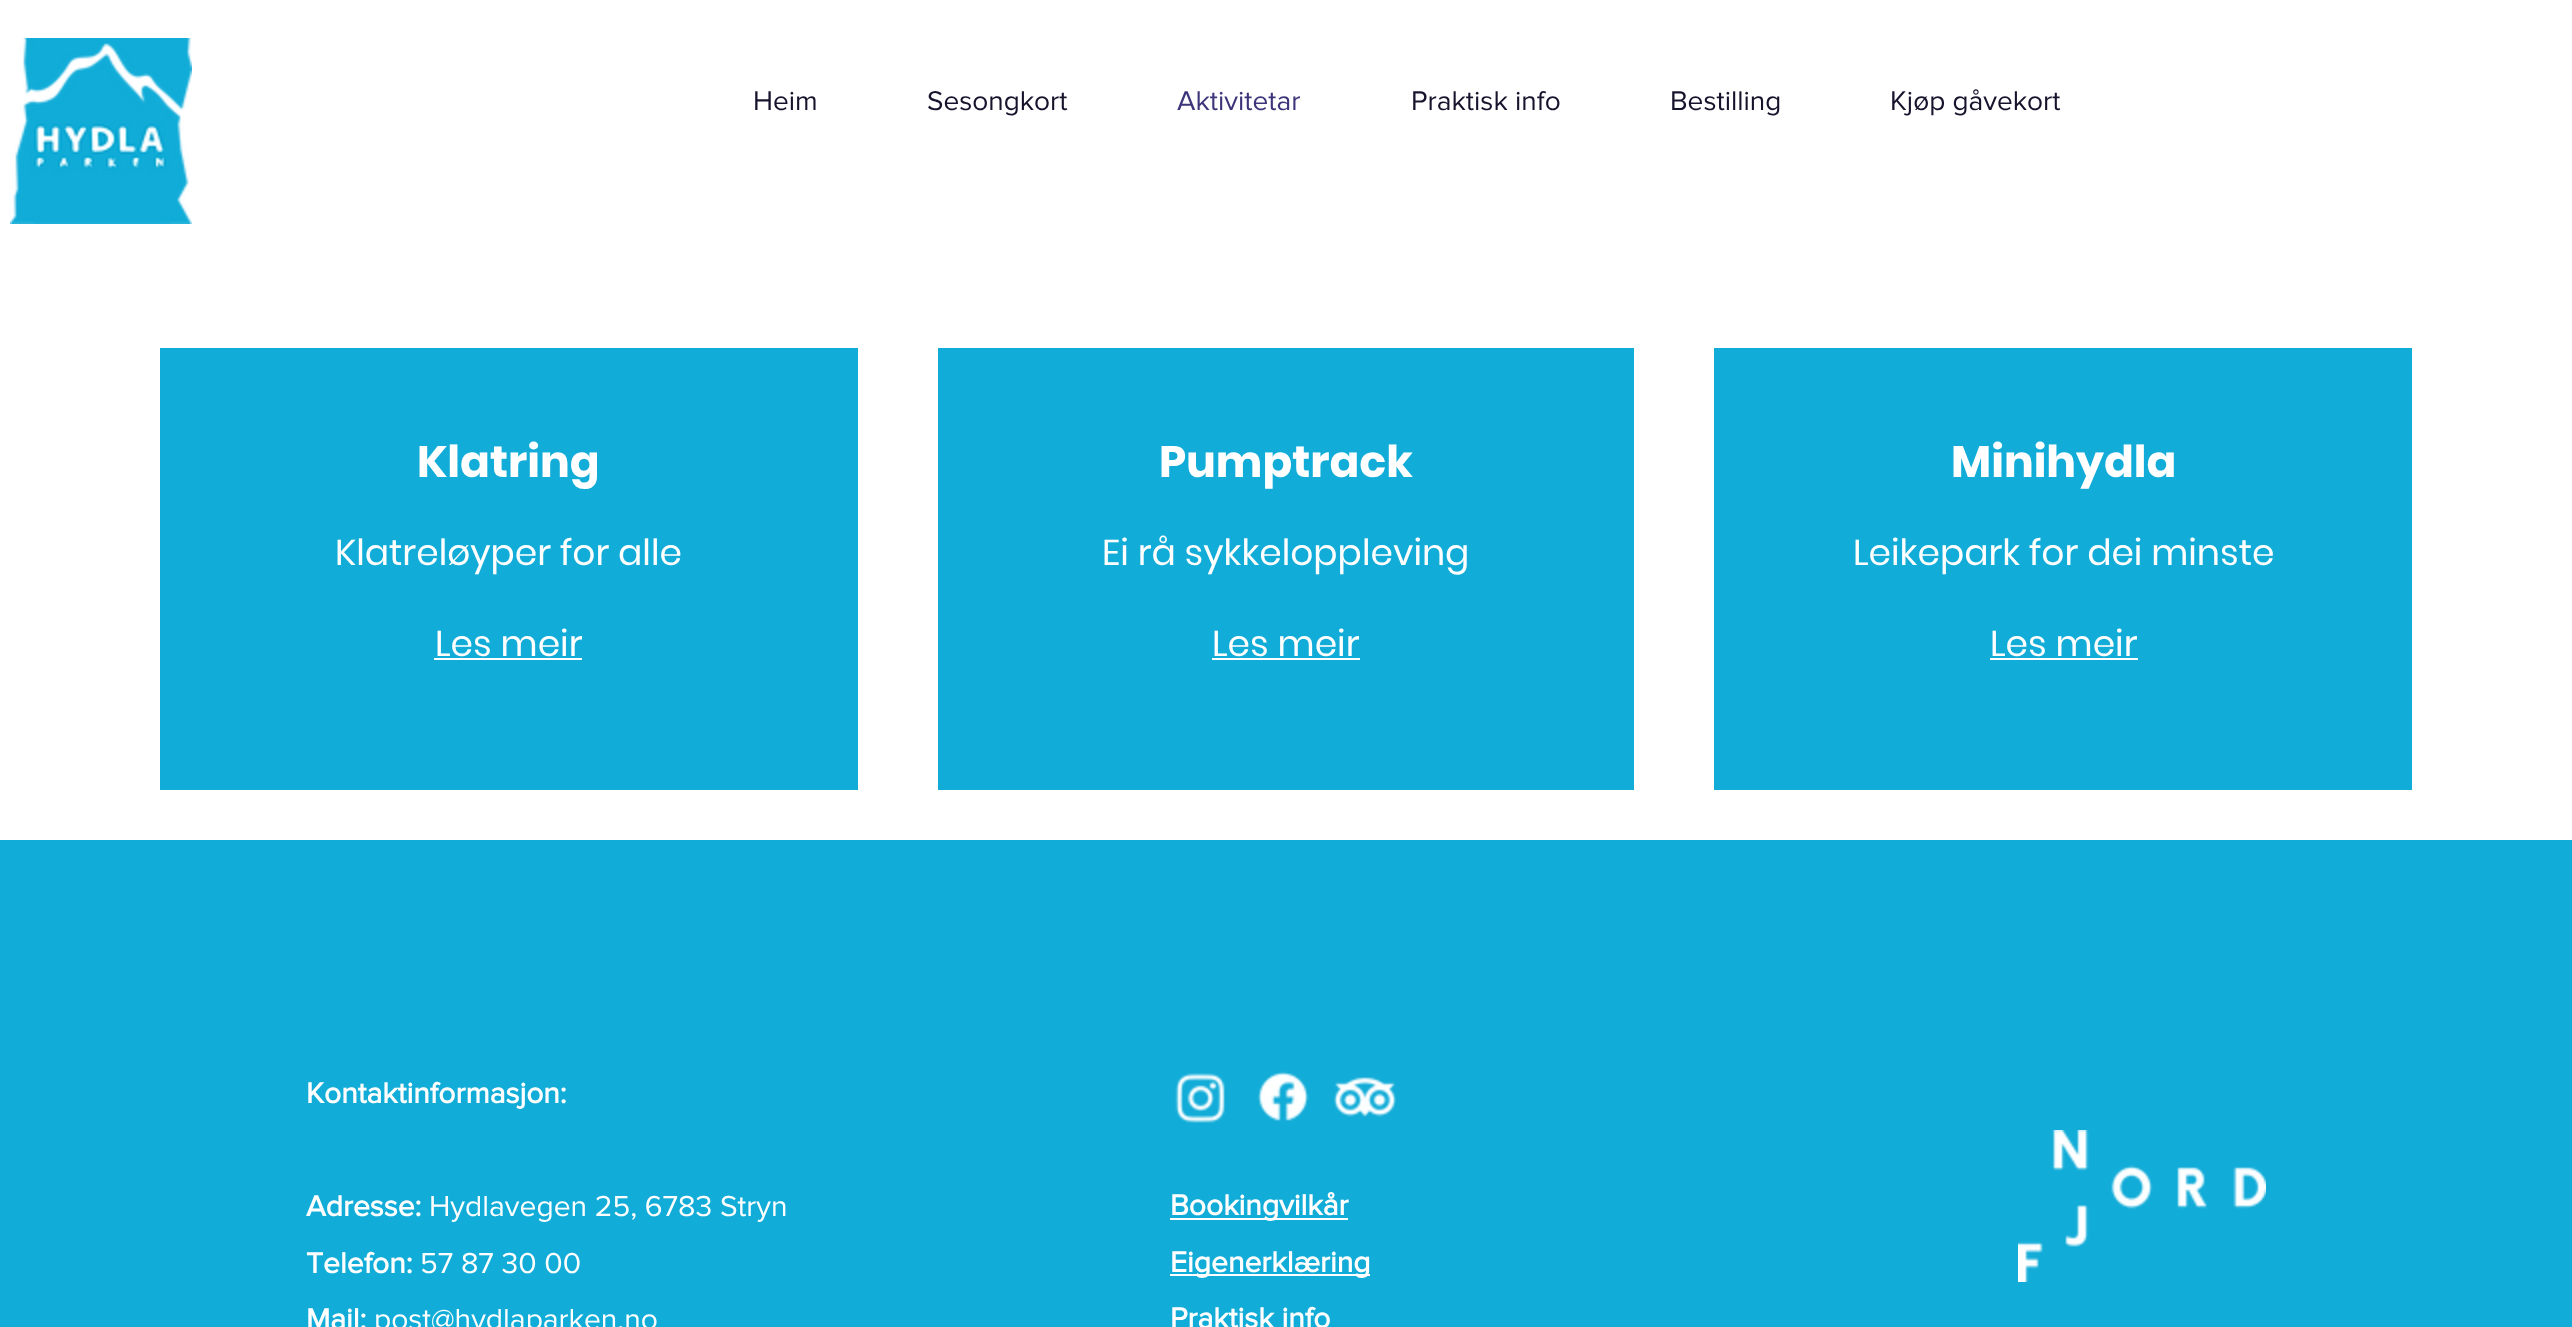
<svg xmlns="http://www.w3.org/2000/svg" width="2572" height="1327">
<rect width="100%" height="100%" fill="#fff"/>
<image x="10" y="38" width="182" height="186" href="media/1.png"/>
<text x="753" y="110" style="font-family:'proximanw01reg';font-size:28px;fill:#16132c">Heim</text>
<text x="927" y="110" style="font-family:'proximanw01reg';font-size:28px;fill:#16132c">Sesongkort</text>
<text x="1177" y="110" style="font-family:'proximanw01reg';font-size:28px;fill:#3d357a">Aktivitetar</text>
<text x="1411" y="110" style="font-family:'proximanw01reg';font-size:28px;fill:#16132c">Praktisk info</text>
<text x="1670" y="110" style="font-family:'proximanw01reg';font-size:28px;fill:#16132c">Bestilling</text>
<text x="1890" y="110" style="font-family:'proximanw01reg';font-size:28px;fill:#16132c">Kjøp gåvekort</text>
<rect x="160" y="348" width="698" height="442" fill="#11acd8"/>
<text x="417" y="477" style="font-family:Poppins;font-size:44px;font-weight:bold;fill:#fff">Klatring</text>
<text x="335" y="565" style="font-family:Poppins;font-size:36px;fill:#fff">Klatreløyper for alle</text>
<text x="435" y="656" style="font-family:Poppins;font-size:36px;fill:#fff">Les meir</text>
<rect x="434" y="658" width="148" height="2" fill="#fff"/>
<rect x="938" y="348" width="696" height="442" fill="#11acd8"/>
<text x="1159" y="477" style="font-family:Poppins;font-size:44px;font-weight:bold;fill:#fff">Pumptrack</text>
<text x="1102" y="565" style="font-family:Poppins;font-size:36px;fill:#fff">Ei rå sykkeloppleving</text>
<text x="1212" y="656" style="font-family:Poppins;font-size:36px;fill:#fff">Les meir</text>
<rect x="1212" y="658" width="148" height="2" fill="#fff"/>
<rect x="1714" y="348" width="698" height="442" fill="#11acd8"/>
<text x="1951" y="477" style="font-family:Poppins;font-size:44px;font-weight:bold;fill:#fff">Minihydla</text>
<text x="1853" y="565" style="font-family:Poppins;font-size:36px;fill:#fff">Leikepark for dei minste</text>
<text x="1990" y="656" style="font-family:Poppins;font-size:36px;fill:#fff">Les meir</text>
<rect x="1990" y="658" width="148" height="2" fill="#fff"/>
<rect y="840" width="2572" height="487" fill="#11acd8"/>
<text x="306" y="1103" style="font-family:'proximanw01reg';font-size:30px;font-weight:bold;fill:#fff">Kontaktinformasjon:</text>
<text x="306" y="1216" style="font-family:'proximanw01reg';font-size:30px;font-weight:bold;fill:#fff">Adresse:</text>
<text x="429" y="1216" style="font-family:'proximanw01reg';font-size:30px;fill:#fff">Hydlavegen 25, 6783 Stryn</text>
<text x="306" y="1273" style="font-family:'proximanw01reg';font-size:30px;font-weight:bold;fill:#fff">Telefon:</text>
<text x="420" y="1273" style="font-family:'proximanw01reg';font-size:30px;fill:#fff">57 87 30 00</text>
<text x="306" y="1329" style="font-family:'proximanw01reg';font-size:30px;font-weight:bold;fill:#fff">Mail:</text>
<text x="374" y="1329" style="font-family:'proximanw01reg';font-size:30px;fill:#fff">post@hydlaparken.no</text>
<image x="1175" y="1073" width="50" height="50" href="media/2.png"/>
<image x="1257" y="1071" width="52" height="50" href="media/3.png"/>
<image x="1334" y="1077" width="62" height="40" href="media/4.png"/>
<image x="2018" y="1130" width="248" height="152" href="media/5.png"/>
<rect x="1170" y="1218" width="178" height="2" fill="#fff"/>
<text x="1170" y="1215" style="font-family:'proximanw01reg';font-size:30px;font-weight:bold;fill:#fff">Bookingvilkår</text>
<rect x="1170" y="1274" width="200" height="2" fill="#fff"/>
<text x="1170" y="1272" style="font-family:'proximanw01reg';font-size:30px;font-weight:bold;fill:#fff">Eigenerklæring</text>
<text x="1170" y="1328" style="font-family:'proximanw01reg';font-size:30px;font-weight:bold;fill:#fff">Praktisk info</text>
</svg>
